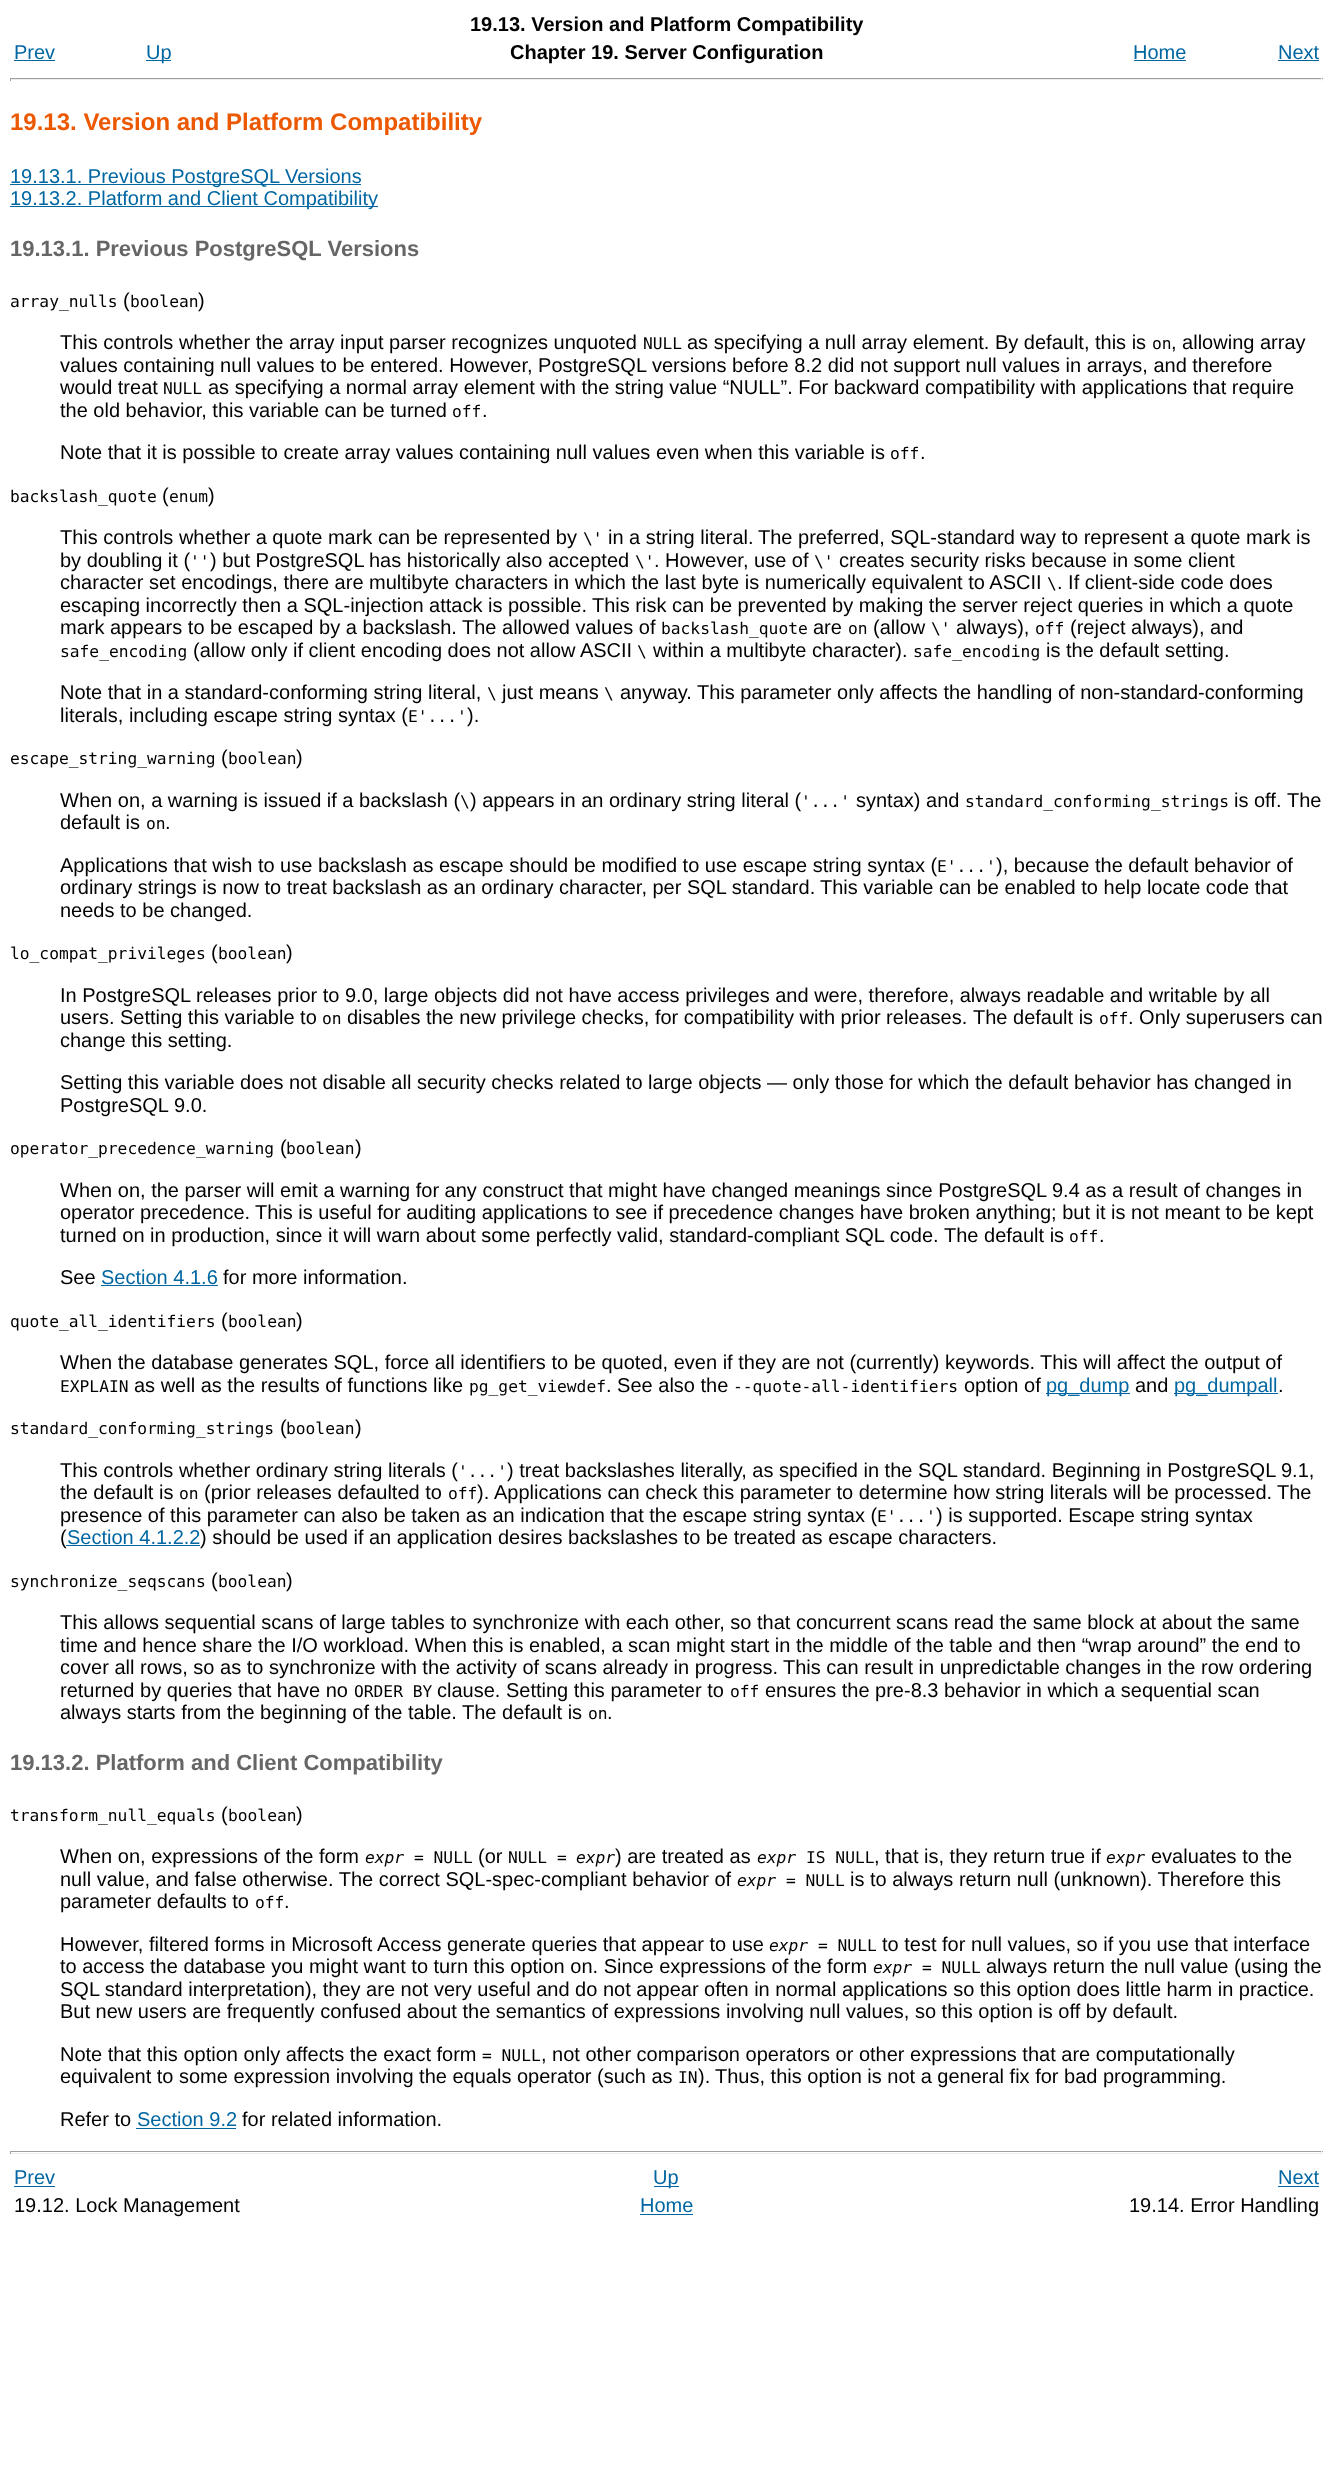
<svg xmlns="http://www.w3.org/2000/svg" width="1332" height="2491">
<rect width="100%" height="100%" fill="#fff"/>
<text x="470" y="31" style="font-family:Liberation Sans;font-size:20px;font-weight:bold;fill:#000">19.13. Version and Platform Compatibility</text>
<text x="14" y="59" style="font-family:Liberation Sans;font-size:20px;fill:#0066a2">Prev</text>
<rect x="14" y="60" width="41" height="1" fill="#0066a2"/>
<rect x="146" y="60" width="25" height="1" fill="#0066a2"/>
<text x="146" y="59" style="font-family:Liberation Sans;font-size:20px;fill:#0066a2">Up</text>
<text x="510" y="59" style="font-family:Liberation Sans;font-size:20px;font-weight:bold;fill:#000">Chapter 19. Server Configuration</text>
<text x="1133" y="59" style="font-family:Liberation Sans;font-size:20px;fill:#0066a2">Home</text>
<rect x="1134" y="60" width="52" height="1" fill="#0066a2"/>
<text x="1278" y="59" style="font-family:Liberation Sans;font-size:20px;fill:#0066a2">Next</text>
<rect x="1278" y="60" width="41" height="1" fill="#0066a2"/>
<rect x="10" y="78" width="1313" height="1" fill="#9f9f9f"/>
<rect x="1321" y="78" width="1" height="3" fill="#eee"/>
<rect x="10" y="79" width="1313" height="1" fill="#eee"/>
<rect x="10" y="78" width="1" height="3" fill="#9f9f9f"/>
<text x="10" y="130" style="font-family:Liberation Sans;font-size:24px;font-weight:bold;fill:#ec5800">19.13. Version and Platform Compatibility</text>
<rect x="10" y="184" width="351" height="1" fill="#0066a2"/>
<text x="10" y="183" style="font-family:Liberation Sans;font-size:20px;fill:#0066a2">19.13.1. Previous PostgreSQL Versions</text>
<rect x="10" y="206" width="368" height="1" fill="#0066a2"/>
<text x="10" y="205" style="font-family:Liberation Sans;font-size:20px;fill:#0066a2">19.13.2. Platform and Client Compatibility</text>
<text x="10" y="256" style="font-family:Liberation Sans;font-size:22px;font-weight:bold;fill:#666">19.13.1. Previous PostgreSQL Versions</text>
<text x="10" y="307" style="font-family:DejaVu Sans Mono;font-size:16.25px;fill:#000">array_nulls</text>
<text x="123" y="307" style="font-family:Liberation Sans;font-size:20px;fill:#000">(</text>
<text x="130" y="307" style="font-family:DejaVu Sans Mono;font-size:16.25px;fill:#000">boolean</text>
<text x="198" y="307" style="font-family:Liberation Sans;font-size:20px;fill:#000">)</text>
<text x="60" y="349" style="font-family:Liberation Sans;font-size:20px;fill:#000">This controls whether the array input parser recognizes unquoted</text>
<text x="643" y="349" style="font-family:DejaVu Sans Mono;font-size:16.25px;fill:#000">NULL</text>
<text x="687" y="349" style="font-family:Liberation Sans;font-size:20px;fill:#000">as specifying a null array element. By default, this is</text>
<text x="1152" y="349" style="font-family:DejaVu Sans Mono;font-size:16.25px;fill:#000">on</text>
<text x="1171" y="349" style="font-family:Liberation Sans;font-size:20px;fill:#000">, allowing array</text>
<text x="60" y="372" style="font-family:Liberation Sans;font-size:20px;fill:#000">values containing null values to be entered. However, PostgreSQL</text>
<text x="652" y="372" style="font-family:Liberation Sans;font-size:20px;fill:#000">versions before 8.2 did not support null values in arrays, and therefore</text>
<text x="60" y="394" style="font-family:Liberation Sans;font-size:20px;fill:#000">would treat</text>
<text x="163" y="394" style="font-family:DejaVu Sans Mono;font-size:16.25px;fill:#000">NULL</text>
<text x="208" y="394" style="font-family:Liberation Sans;font-size:20px;fill:#000">as specifying a normal array element with the string value “NULL”. For backward compatibility with applications that require</text>
<text x="60" y="417" style="font-family:Liberation Sans;font-size:20px;fill:#000">the old behavior, this variable can be turned</text>
<text x="452" y="417" style="font-family:DejaVu Sans Mono;font-size:16.25px;fill:#000">off</text>
<text x="482" y="417" style="font-family:Liberation Sans;font-size:20px;fill:#000">.</text>
<text x="60" y="459" style="font-family:Liberation Sans;font-size:20px;fill:#000">Note that it is possible to create array values containing null values even when this variable is</text>
<text x="890" y="459" style="font-family:DejaVu Sans Mono;font-size:16.25px;fill:#000">off</text>
<text x="920" y="459" style="font-family:Liberation Sans;font-size:20px;fill:#000">.</text>
<text x="10" y="502" style="font-family:DejaVu Sans Mono;font-size:16.25px;fill:#000">backslash_quote</text>
<text x="162" y="502" style="font-family:Liberation Sans;font-size:20px;fill:#000">(</text>
<text x="169" y="502" style="font-family:DejaVu Sans Mono;font-size:16.25px;fill:#000">enum</text>
<text x="208" y="502" style="font-family:Liberation Sans;font-size:20px;fill:#000">)</text>
<text x="60" y="544" style="font-family:Liberation Sans;font-size:20px;fill:#000">This controls whether a quote mark can be represented by</text>
<text x="583" y="544" style="font-family:DejaVu Sans Mono;font-size:16.25px;fill:#000">\'</text>
<text x="608" y="544" style="font-family:Liberation Sans;font-size:20px;fill:#000">in a string literal.</text>
<text x="758" y="544" style="font-family:Liberation Sans;font-size:20px;fill:#000">The preferred, SQL-standard way to represent a quote mark is</text>
<text x="60" y="567" style="font-family:Liberation Sans;font-size:20px;fill:#000">by doubling it (</text>
<text x="190" y="567" style="font-family:DejaVu Sans Mono;font-size:16.25px;fill:#000">''</text>
<text x="210" y="567" style="font-family:Liberation Sans;font-size:20px;fill:#000">) but PostgreSQL</text>
<text x="369" y="567" style="font-family:Liberation Sans;font-size:20px;fill:#000">has historically also accepted</text>
<text x="635" y="567" style="font-family:DejaVu Sans Mono;font-size:16.25px;fill:#000">\'</text>
<text x="654" y="567" style="font-family:Liberation Sans;font-size:20px;fill:#000">. However, use of</text>
<text x="814" y="567" style="font-family:DejaVu Sans Mono;font-size:16.25px;fill:#000">\'</text>
<text x="839" y="567" style="font-family:Liberation Sans;font-size:20px;fill:#000">creates security risks because in some client</text>
<text x="60" y="589" style="font-family:Liberation Sans;font-size:20px;fill:#000">character set encodings, there are multibyte characters in which the last byte is numerically equivalent to ASCII</text>
<text x="1047" y="589" style="font-family:DejaVu Sans Mono;font-size:16.25px;fill:#000">\</text>
<text x="1057" y="589" style="font-family:Liberation Sans;font-size:20px;fill:#000">. If client-side code does</text>
<text x="60" y="612" style="font-family:Liberation Sans;font-size:20px;fill:#000">escaping incorrectly then a SQL-injection attack is possible.</text>
<text x="592" y="612" style="font-family:Liberation Sans;font-size:20px;fill:#000">This risk can be prevented by making the server reject queries in which a quote</text>
<text x="60" y="634" style="font-family:Liberation Sans;font-size:20px;fill:#000">mark appears to be escaped by a backslash.</text>
<text x="462" y="634" style="font-family:Liberation Sans;font-size:20px;fill:#000">The allowed values of</text>
<text x="661" y="634" style="font-family:DejaVu Sans Mono;font-size:16.25px;fill:#000">backslash_quote</text>
<text x="813" y="634" style="font-family:Liberation Sans;font-size:20px;fill:#000">are</text>
<text x="848" y="634" style="font-family:DejaVu Sans Mono;font-size:16.25px;fill:#000">on</text>
<text x="873" y="634" style="font-family:Liberation Sans;font-size:20px;fill:#000">(allow</text>
<text x="931" y="634" style="font-family:DejaVu Sans Mono;font-size:16.25px;fill:#000">\'</text>
<text x="956" y="634" style="font-family:Liberation Sans;font-size:20px;fill:#000">always),</text>
<text x="1035" y="634" style="font-family:DejaVu Sans Mono;font-size:16.25px;fill:#000">off</text>
<text x="1070" y="634" style="font-family:Liberation Sans;font-size:20px;fill:#000">(reject always), and</text>
<text x="60" y="657" style="font-family:DejaVu Sans Mono;font-size:16.25px;fill:#000">safe_encoding</text>
<text x="193" y="657" style="font-family:Liberation Sans;font-size:20px;fill:#000">(allow only if client encoding does not allow ASCII</text>
<text x="637" y="657" style="font-family:DejaVu Sans Mono;font-size:16.25px;fill:#000">\</text>
<text x="653" y="657" style="font-family:Liberation Sans;font-size:20px;fill:#000">within a multibyte character).</text>
<text x="913" y="657" style="font-family:DejaVu Sans Mono;font-size:16.25px;fill:#000">safe_encoding</text>
<text x="1046" y="657" style="font-family:Liberation Sans;font-size:20px;fill:#000">is the default setting.</text>
<text x="60" y="699" style="font-family:Liberation Sans;font-size:20px;fill:#000">Note that in a standard-conforming string literal,</text>
<text x="487" y="699" style="font-family:DejaVu Sans Mono;font-size:16.25px;fill:#000">\</text>
<text x="502" y="699" style="font-family:Liberation Sans;font-size:20px;fill:#000">just means</text>
<text x="604" y="699" style="font-family:DejaVu Sans Mono;font-size:16.25px;fill:#000">\</text>
<text x="620" y="699" style="font-family:Liberation Sans;font-size:20px;fill:#000">anyway.</text>
<text x="697" y="699" style="font-family:Liberation Sans;font-size:20px;fill:#000">This parameter only affects the handling of non-standard-conforming</text>
<text x="60" y="722" style="font-family:Liberation Sans;font-size:20px;fill:#000">literals, including escape string syntax (</text>
<text x="408" y="722" style="font-family:DejaVu Sans Mono;font-size:16.25px;fill:#000">E'...'</text>
<text x="467" y="722" style="font-family:Liberation Sans;font-size:20px;fill:#000">).</text>
<text x="10" y="764" style="font-family:DejaVu Sans Mono;font-size:16.25px;fill:#000">escape_string_warning</text>
<text x="221" y="764" style="font-family:Liberation Sans;font-size:20px;fill:#000">(</text>
<text x="228" y="764" style="font-family:DejaVu Sans Mono;font-size:16.25px;fill:#000">boolean</text>
<text x="296" y="764" style="font-family:Liberation Sans;font-size:20px;fill:#000">)</text>
<text x="60" y="807" style="font-family:Liberation Sans;font-size:20px;fill:#000">When on, a warning is issued if a backslash (</text>
<text x="460" y="807" style="font-family:DejaVu Sans Mono;font-size:16.25px;fill:#000">\</text>
<text x="470" y="807" style="font-family:Liberation Sans;font-size:20px;fill:#000">) appears in an ordinary string literal (</text>
<text x="801" y="807" style="font-family:DejaVu Sans Mono;font-size:16.25px;fill:#000">'...'</text>
<text x="856" y="807" style="font-family:Liberation Sans;font-size:20px;fill:#000">syntax) and</text>
<text x="965" y="807" style="font-family:DejaVu Sans Mono;font-size:16.25px;fill:#000">standard_conforming_strings</text>
<text x="1234" y="807" style="font-family:Liberation Sans;font-size:20px;fill:#000">is off.</text>
<text x="1287" y="807" style="font-family:Liberation Sans;font-size:20px;fill:#000">The</text>
<text x="60" y="829" style="font-family:Liberation Sans;font-size:20px;fill:#000">default is</text>
<text x="146" y="829" style="font-family:DejaVu Sans Mono;font-size:16.25px;fill:#000">on</text>
<text x="165" y="829" style="font-family:Liberation Sans;font-size:20px;fill:#000">.</text>
<text x="60" y="872" style="font-family:Liberation Sans;font-size:20px;fill:#000">Applications that wish to use backslash as escape should be modified to use escape string syntax (</text>
<text x="937" y="872" style="font-family:DejaVu Sans Mono;font-size:16.25px;fill:#000">E'...'</text>
<text x="996" y="872" style="font-family:Liberation Sans;font-size:20px;fill:#000">), because the default behavior of</text>
<text x="60" y="894" style="font-family:Liberation Sans;font-size:20px;fill:#000">ordinary strings is now to treat backslash as an ordinary character, per SQL standard.</text>
<text x="820" y="894" style="font-family:Liberation Sans;font-size:20px;fill:#000">This variable can be enabled to help locate code that</text>
<text x="60" y="917" style="font-family:Liberation Sans;font-size:20px;fill:#000">needs to be changed.</text>
<text x="10" y="959" style="font-family:DejaVu Sans Mono;font-size:16.25px;fill:#000">lo_compat_privileges</text>
<text x="211" y="959" style="font-family:Liberation Sans;font-size:20px;fill:#000">(</text>
<text x="218" y="959" style="font-family:DejaVu Sans Mono;font-size:16.25px;fill:#000">boolean</text>
<text x="286" y="959" style="font-family:Liberation Sans;font-size:20px;fill:#000">)</text>
<text x="60" y="1002" style="font-family:Liberation Sans;font-size:20px;fill:#000">In PostgreSQL</text>
<text x="196" y="1002" style="font-family:Liberation Sans;font-size:20px;fill:#000">releases prior to 9.0, large objects did not have access privileges and were, therefore, always readable and writable by all</text>
<text x="60" y="1024" style="font-family:Liberation Sans;font-size:20px;fill:#000">users. Setting this variable to</text>
<text x="322" y="1024" style="font-family:DejaVu Sans Mono;font-size:16.25px;fill:#000">on</text>
<text x="347" y="1024" style="font-family:Liberation Sans;font-size:20px;fill:#000">disables the new privilege checks, for compatibility with prior releases.</text>
<text x="973" y="1024" style="font-family:Liberation Sans;font-size:20px;fill:#000">The default is</text>
<text x="1099" y="1024" style="font-family:DejaVu Sans Mono;font-size:16.25px;fill:#000">off</text>
<text x="1128" y="1024" style="font-family:Liberation Sans;font-size:20px;fill:#000">. Only superusers can</text>
<text x="60" y="1047" style="font-family:Liberation Sans;font-size:20px;fill:#000">change this setting.</text>
<text x="60" y="1089" style="font-family:Liberation Sans;font-size:20px;fill:#000">Setting this variable does not disable all security checks related to large objects — only those for which the default behavior has changed in</text>
<text x="60" y="1112" style="font-family:Liberation Sans;font-size:20px;fill:#000">PostgreSQL</text>
<text x="174" y="1112" style="font-family:Liberation Sans;font-size:20px;fill:#000">9.0.</text>
<text x="10" y="1154" style="font-family:DejaVu Sans Mono;font-size:16.25px;fill:#000">operator_precedence_warning</text>
<text x="280" y="1154" style="font-family:Liberation Sans;font-size:20px;fill:#000">(</text>
<text x="286" y="1154" style="font-family:DejaVu Sans Mono;font-size:16.25px;fill:#000">boolean</text>
<text x="355" y="1154" style="font-family:Liberation Sans;font-size:20px;fill:#000">)</text>
<text x="60" y="1197" style="font-family:Liberation Sans;font-size:20px;fill:#000">When on, the parser will emit a warning for any construct that might have changed meanings since PostgreSQL</text>
<text x="1052" y="1197" style="font-family:Liberation Sans;font-size:20px;fill:#000">9.4 as a result of changes in</text>
<text x="60" y="1219" style="font-family:Liberation Sans;font-size:20px;fill:#000">operator precedence.</text>
<text x="255" y="1219" style="font-family:Liberation Sans;font-size:20px;fill:#000">This is useful for auditing applications to see if precedence changes have broken anything; but it is not meant to be kept</text>
<text x="60" y="1242" style="font-family:Liberation Sans;font-size:20px;fill:#000">turned on in production, since it will warn about some perfectly valid, standard-compliant SQL code.</text>
<text x="944" y="1242" style="font-family:Liberation Sans;font-size:20px;fill:#000">The default is</text>
<text x="1069" y="1242" style="font-family:DejaVu Sans Mono;font-size:16.25px;fill:#000">off</text>
<text x="1099" y="1242" style="font-family:Liberation Sans;font-size:20px;fill:#000">.</text>
<text x="60" y="1284" style="font-family:Liberation Sans;font-size:20px;fill:#000">See</text>
<text x="101" y="1284" style="font-family:Liberation Sans;font-size:20px;fill:#0066a2">Section 4.1.6</text>
<rect x="101" y="1285" width="117" height="1" fill="#0066a2"/>
<text x="223" y="1284" style="font-family:Liberation Sans;font-size:20px;fill:#000">for more information.</text>
<text x="10" y="1327" style="font-family:DejaVu Sans Mono;font-size:16.25px;fill:#000">quote_all_identifiers</text>
<text x="221" y="1327" style="font-family:Liberation Sans;font-size:20px;fill:#000">(</text>
<text x="228" y="1327" style="font-family:DejaVu Sans Mono;font-size:16.25px;fill:#000">boolean</text>
<text x="296" y="1327" style="font-family:Liberation Sans;font-size:20px;fill:#000">)</text>
<text x="60" y="1369" style="font-family:Liberation Sans;font-size:20px;fill:#000">When the database generates SQL, force all identifiers to be quoted, even if they are not (currently) keywords.</text>
<text x="1040" y="1369" style="font-family:Liberation Sans;font-size:20px;fill:#000">This will affect the output of</text>
<text x="60" y="1392" style="font-family:DejaVu Sans Mono;font-size:16.25px;fill:#000">EXPLAIN</text>
<text x="134" y="1392" style="font-family:Liberation Sans;font-size:20px;fill:#000">as well as the results of functions like</text>
<text x="469" y="1392" style="font-family:DejaVu Sans Mono;font-size:16.25px;fill:#000">pg_get_viewdef</text>
<text x="606" y="1392" style="font-family:Liberation Sans;font-size:20px;fill:#000">. See also the</text>
<text x="733" y="1392" style="font-family:DejaVu Sans Mono;font-size:16.25px;fill:#000">--quote-all-identifiers</text>
<text x="964" y="1392" style="font-family:Liberation Sans;font-size:20px;fill:#000">option of</text>
<rect x="1046" y="1393" width="84" height="1" fill="#0066a2"/>
<text x="1046" y="1392" style="font-family:Liberation Sans;font-size:20px;fill:#0066a2">pg_dump</text>
<text x="1135" y="1392" style="font-family:Liberation Sans;font-size:20px;fill:#000">and</text>
<rect x="1174" y="1393" width="104" height="1" fill="#0066a2"/>
<text x="1174" y="1392" style="font-family:Liberation Sans;font-size:20px;fill:#0066a2">pg_dumpall</text>
<text x="1278" y="1392" style="font-family:Liberation Sans;font-size:20px;fill:#000">.</text>
<text x="10" y="1434" style="font-family:DejaVu Sans Mono;font-size:16.25px;fill:#000">standard_conforming_strings</text>
<text x="280" y="1434" style="font-family:Liberation Sans;font-size:20px;fill:#000">(</text>
<text x="286" y="1434" style="font-family:DejaVu Sans Mono;font-size:16.25px;fill:#000">boolean</text>
<text x="355" y="1434" style="font-family:Liberation Sans;font-size:20px;fill:#000">)</text>
<text x="60" y="1477" style="font-family:Liberation Sans;font-size:20px;fill:#000">This controls whether ordinary string literals (</text>
<text x="458" y="1477" style="font-family:DejaVu Sans Mono;font-size:16.25px;fill:#000">'...'</text>
<text x="507" y="1477" style="font-family:Liberation Sans;font-size:20px;fill:#000">) treat backslashes literally, as specified in the SQL standard. Beginning in PostgreSQL</text>
<text x="1281" y="1477" style="font-family:Liberation Sans;font-size:20px;fill:#000">9.1,</text>
<text x="60" y="1499" style="font-family:Liberation Sans;font-size:20px;fill:#000">the default is</text>
<text x="179" y="1499" style="font-family:DejaVu Sans Mono;font-size:16.25px;fill:#000">on</text>
<text x="204" y="1499" style="font-family:Liberation Sans;font-size:20px;fill:#000">(prior releases defaulted to</text>
<text x="448" y="1499" style="font-family:DejaVu Sans Mono;font-size:16.25px;fill:#000">off</text>
<text x="477" y="1499" style="font-family:Liberation Sans;font-size:20px;fill:#000">).</text>
<text x="494" y="1499" style="font-family:Liberation Sans;font-size:20px;fill:#000">Applications can check this parameter to determine how string literals will be processed.</text>
<text x="1277" y="1499" style="font-family:Liberation Sans;font-size:20px;fill:#000">The</text>
<text x="60" y="1522" style="font-family:Liberation Sans;font-size:20px;fill:#000">presence of this parameter can also be taken as an indication that the escape string syntax (</text>
<text x="877" y="1522" style="font-family:DejaVu Sans Mono;font-size:16.25px;fill:#000">E'...'</text>
<text x="936" y="1522" style="font-family:Liberation Sans;font-size:20px;fill:#000">) is supported. Escape string syntax</text>
<text x="60" y="1544" style="font-family:Liberation Sans;font-size:20px;fill:#000">(</text>
<text x="67" y="1544" style="font-family:Liberation Sans;font-size:20px;fill:#0066a2">Section 4.1.2.2</text>
<rect x="66" y="1545" width="134" height="1" fill="#0066a2"/>
<text x="200" y="1544" style="font-family:Liberation Sans;font-size:20px;fill:#000">) should be used if an application desires backslashes to be treated as escape characters.</text>
<text x="10" y="1587" style="font-family:DejaVu Sans Mono;font-size:16.25px;fill:#000">synchronize_seqscans</text>
<text x="211" y="1587" style="font-family:Liberation Sans;font-size:20px;fill:#000">(</text>
<text x="218" y="1587" style="font-family:DejaVu Sans Mono;font-size:16.25px;fill:#000">boolean</text>
<text x="286" y="1587" style="font-family:Liberation Sans;font-size:20px;fill:#000">)</text>
<text x="60" y="1629" style="font-family:Liberation Sans;font-size:20px;fill:#000">This allows sequential scans of large tables to synchronize with each other, so that concurrent scans read the same block at about the same</text>
<text x="60" y="1652" style="font-family:Liberation Sans;font-size:20px;fill:#000">time and hence share the I/O workload. When this is enabled, a scan might start in the middle of the table and then “wrap around” the end to</text>
<text x="60" y="1674" style="font-family:Liberation Sans;font-size:20px;fill:#000">cover all rows, so as to synchronize with the activity of scans already in progress.</text>
<text x="783" y="1674" style="font-family:Liberation Sans;font-size:20px;fill:#000">This can result in unpredictable changes in the row ordering</text>
<text x="60" y="1697" style="font-family:Liberation Sans;font-size:20px;fill:#000">returned by queries that have no</text>
<text x="354" y="1697" style="font-family:DejaVu Sans Mono;font-size:16.25px;fill:#000">ORDER BY</text>
<text x="437" y="1697" style="font-family:Liberation Sans;font-size:20px;fill:#000">clause. Setting this parameter to</text>
<text x="730" y="1697" style="font-family:DejaVu Sans Mono;font-size:16.25px;fill:#000">off</text>
<text x="765" y="1697" style="font-family:Liberation Sans;font-size:20px;fill:#000">ensures the pre-8.3 behavior in which a sequential scan</text>
<text x="60" y="1719" style="font-family:Liberation Sans;font-size:20px;fill:#000">always starts from the beginning of the table.</text>
<text x="462" y="1719" style="font-family:Liberation Sans;font-size:20px;fill:#000">The default is</text>
<text x="588" y="1719" style="font-family:DejaVu Sans Mono;font-size:16.25px;fill:#000">on</text>
<text x="607" y="1719" style="font-family:Liberation Sans;font-size:20px;fill:#000">.</text>
<text x="10" y="1770" style="font-family:Liberation Sans;font-size:22px;font-weight:bold;fill:#666">19.13.2. Platform and Client Compatibility</text>
<text x="10" y="1821" style="font-family:DejaVu Sans Mono;font-size:16.25px;fill:#000">transform_null_equals</text>
<text x="221" y="1821" style="font-family:Liberation Sans;font-size:20px;fill:#000">(</text>
<text x="228" y="1821" style="font-family:DejaVu Sans Mono;font-size:16.25px;fill:#000">boolean</text>
<text x="296" y="1821" style="font-family:Liberation Sans;font-size:20px;fill:#000">)</text>
<text x="60" y="1863" style="font-family:Liberation Sans;font-size:20px;fill:#000">When on, expressions of the form</text>
<text x="365" y="1863" style="font-family:DejaVu Sans Mono;font-size:16.25px;font-style:italic;fill:#000">expr</text>
<text x="414" y="1863" style="font-family:DejaVu Sans Mono;font-size:16.25px;fill:#000">= NULL</text>
<text x="478" y="1863" style="font-family:Liberation Sans;font-size:20px;fill:#000">(or</text>
<text x="508" y="1863" style="font-family:DejaVu Sans Mono;font-size:16.25px;fill:#000">NULL =</text>
<text x="576" y="1863" style="font-family:DejaVu Sans Mono;font-size:16.25px;font-style:italic;fill:#000">expr</text>
<text x="615" y="1863" style="font-family:Liberation Sans;font-size:20px;fill:#000">) are treated as</text>
<text x="757" y="1863" style="font-family:DejaVu Sans Mono;font-size:16.25px;font-style:italic;fill:#000">expr</text>
<text x="806" y="1863" style="font-family:DejaVu Sans Mono;font-size:16.25px;fill:#000">IS NULL</text>
<text x="874" y="1863" style="font-family:Liberation Sans;font-size:20px;fill:#000">, that is, they return true if</text>
<text x="1106" y="1863" style="font-family:DejaVu Sans Mono;font-size:16.25px;font-style:italic;fill:#000">expr</text>
<text x="1151" y="1863" style="font-family:Liberation Sans;font-size:20px;fill:#000">evaluates to the</text>
<text x="60" y="1886" style="font-family:Liberation Sans;font-size:20px;fill:#000">null value, and false otherwise. The correct SQL-spec-compliant behavior of</text>
<text x="737" y="1886" style="font-family:DejaVu Sans Mono;font-size:16.25px;font-style:italic;fill:#000">expr</text>
<text x="786" y="1886" style="font-family:DejaVu Sans Mono;font-size:16.25px;fill:#000">= NULL</text>
<text x="850" y="1886" style="font-family:Liberation Sans;font-size:20px;fill:#000">is to always return null (unknown). Therefore this</text>
<text x="60" y="1908" style="font-family:Liberation Sans;font-size:20px;fill:#000">parameter defaults to</text>
<text x="255" y="1908" style="font-family:DejaVu Sans Mono;font-size:16.25px;fill:#000">off</text>
<text x="284" y="1908" style="font-family:Liberation Sans;font-size:20px;fill:#000">.</text>
<text x="60" y="1951" style="font-family:Liberation Sans;font-size:20px;fill:#000">However, filtered forms in Microsoft</text>
<text x="377" y="1951" style="font-family:Liberation Sans;font-size:20px;fill:#000">Access generate queries that appear to use</text>
<text x="769" y="1951" style="font-family:DejaVu Sans Mono;font-size:16.25px;font-style:italic;fill:#000">expr</text>
<text x="818" y="1951" style="font-family:DejaVu Sans Mono;font-size:16.25px;fill:#000">= NULL</text>
<text x="882" y="1951" style="font-family:Liberation Sans;font-size:20px;fill:#000">to test for null values, so if you use that interface</text>
<text x="60" y="1973" style="font-family:Liberation Sans;font-size:20px;fill:#000">to access the database you might want to turn this option on. Since expressions of the form</text>
<text x="873" y="1973" style="font-family:DejaVu Sans Mono;font-size:16.25px;font-style:italic;fill:#000">expr</text>
<text x="922" y="1973" style="font-family:DejaVu Sans Mono;font-size:16.25px;fill:#000">= NULL</text>
<text x="986" y="1973" style="font-family:Liberation Sans;font-size:20px;fill:#000">always return the null value (using the</text>
<text x="60" y="1996" style="font-family:Liberation Sans;font-size:20px;fill:#000">SQL standard interpretation), they are not very useful and do not appear often in normal applications so this option does little harm in practice.</text>
<text x="60" y="2018" style="font-family:Liberation Sans;font-size:20px;fill:#000">But new users are frequently confused about the semantics of expressions involving null values, so this option is off by default.</text>
<text x="60" y="2061" style="font-family:Liberation Sans;font-size:20px;fill:#000">Note that this option only affects the exact form</text>
<text x="482" y="2061" style="font-family:DejaVu Sans Mono;font-size:16.25px;fill:#000">= NULL</text>
<text x="541" y="2061" style="font-family:Liberation Sans;font-size:20px;fill:#000">, not other comparison operators or other expressions that are computationally</text>
<text x="60" y="2083" style="font-family:Liberation Sans;font-size:20px;fill:#000">equivalent to some expression involving the equals operator (such as</text>
<text x="678" y="2083" style="font-family:DejaVu Sans Mono;font-size:16.25px;fill:#000">IN</text>
<text x="698" y="2083" style="font-family:Liberation Sans;font-size:20px;fill:#000">).</text>
<text x="715" y="2083" style="font-family:Liberation Sans;font-size:20px;fill:#000">Thus, this option is not a general fix for bad programming.</text>
<text x="60" y="2126" style="font-family:Liberation Sans;font-size:20px;fill:#000">Refer to</text>
<text x="137" y="2126" style="font-family:Liberation Sans;font-size:20px;fill:#0066a2">Section 9.2</text>
<rect x="136" y="2128" width="100" height="1" fill="#0066a2"/>
<text x="242" y="2126" style="font-family:Liberation Sans;font-size:20px;fill:#000">for related information.</text>
<rect x="10" y="2151" width="1313" height="1" fill="#9f9f9f"/>
<rect x="1321" y="2151" width="1" height="3" fill="#eee"/>
<rect x="10" y="2153" width="1313" height="1" fill="#eee"/>
<rect x="10" y="2151" width="1" height="3" fill="#9f9f9f"/>
<text x="14" y="2184" style="font-family:Liberation Sans;font-size:20px;fill:#0066a2">Prev</text>
<rect x="14" y="2186" width="41" height="1" fill="#0066a2"/>
<rect x="654" y="2186" width="25" height="1" fill="#0066a2"/>
<text x="653" y="2184" style="font-family:Liberation Sans;font-size:20px;fill:#0066a2">Up</text>
<text x="1278" y="2184" style="font-family:Liberation Sans;font-size:20px;fill:#0066a2">Next</text>
<rect x="1278" y="2186" width="41" height="1" fill="#0066a2"/>
<text x="14" y="2212" style="font-family:Liberation Sans;font-size:20px;fill:#000">19.12. Lock Management</text>
<text x="640" y="2212" style="font-family:Liberation Sans;font-size:20px;fill:#0066a2">Home</text>
<rect x="640" y="2214" width="53" height="1" fill="#0066a2"/>
<text x="1129" y="2212" style="font-family:Liberation Sans;font-size:20px;fill:#000">19.14. Error Handling</text>
</svg>
